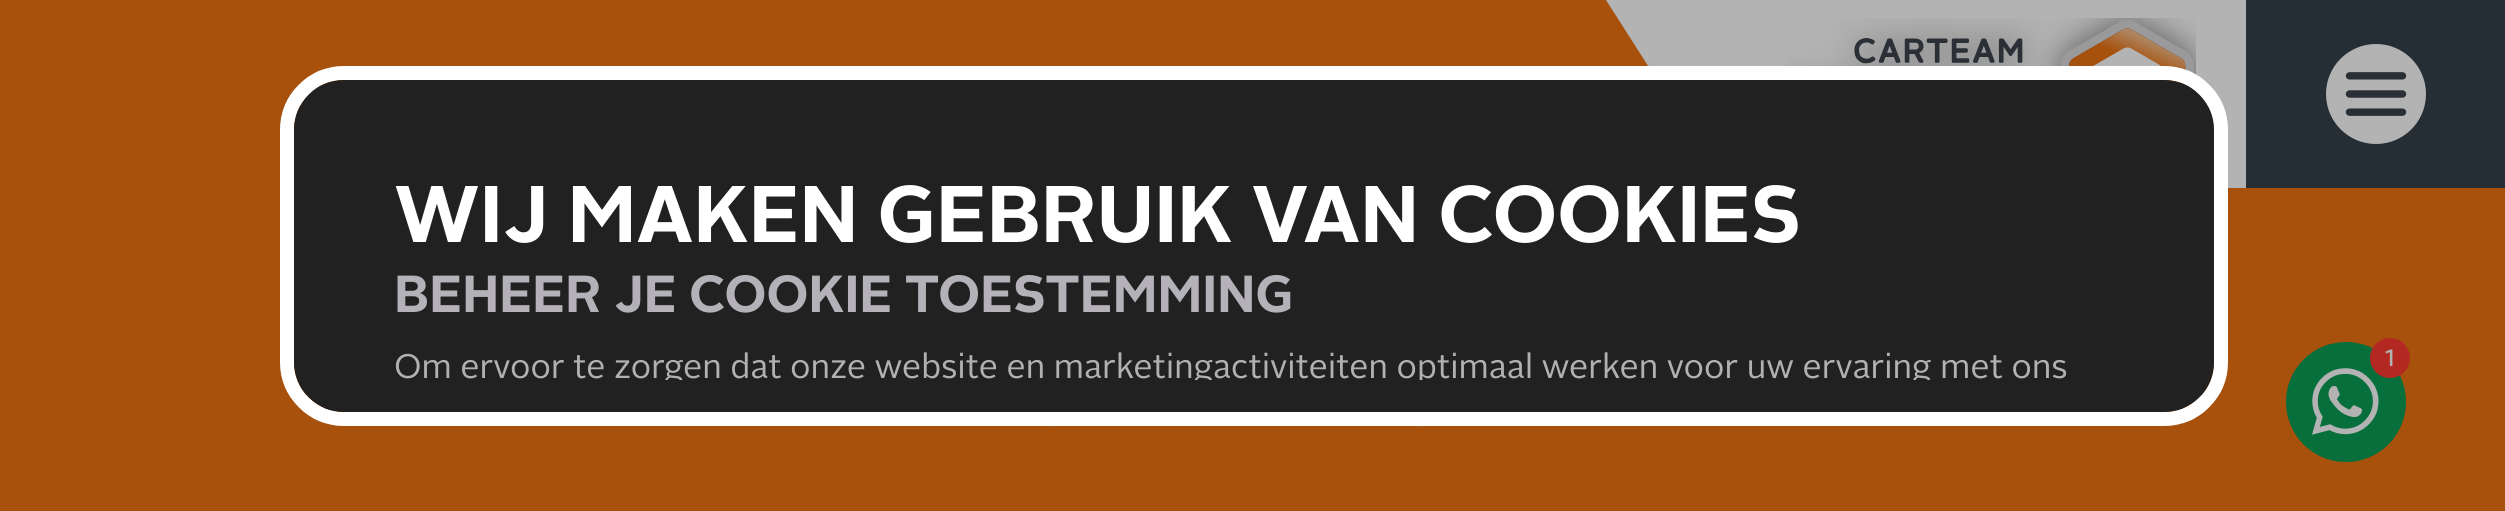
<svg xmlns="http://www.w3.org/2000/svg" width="2505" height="511">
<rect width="100%" height="100%" fill="#a7510d"/>
<image x="1052" y="426" width="371" height="1" href="media/1.png"/>
<rect x="1726" width="520" height="188" fill="#b3b3b3"/>
<path d="M1726 0v188l-120-188z" fill="#b3b3b3"/>
<image x="1785" y="18" width="411" height="74" href="media/2.png"/>
<rect x="2246" width="259" height="188" fill="#252e34"/>
<image x="2326" y="44" width="100" height="100" href="media/3.png"/>
<circle cx="2346" cy="402" r="60" fill="#066f3c"/>
<image x="2312" y="368" width="67" height="67" href="media/5.png"/>
<circle cx="2390" cy="358" r="20" fill="#b32922"/>
<image x="2385" y="349" width="8" height="17" href="media/4.png"/>
<rect x="287" y="73" width="1934" height="346" rx="57" fill="none" stroke="#fff" stroke-width="14"/>
<rect x="294" y="80" width="1920" height="332" rx="50" fill="#212121"/>
<image x="395" y="185" width="1403" height="58" href="media/6.png"/>
<image x="397" y="275" width="894" height="38" href="media/7.png"/>
<image x="395" y="352" width="1672" height="28" href="media/8.png"/>
</svg>
